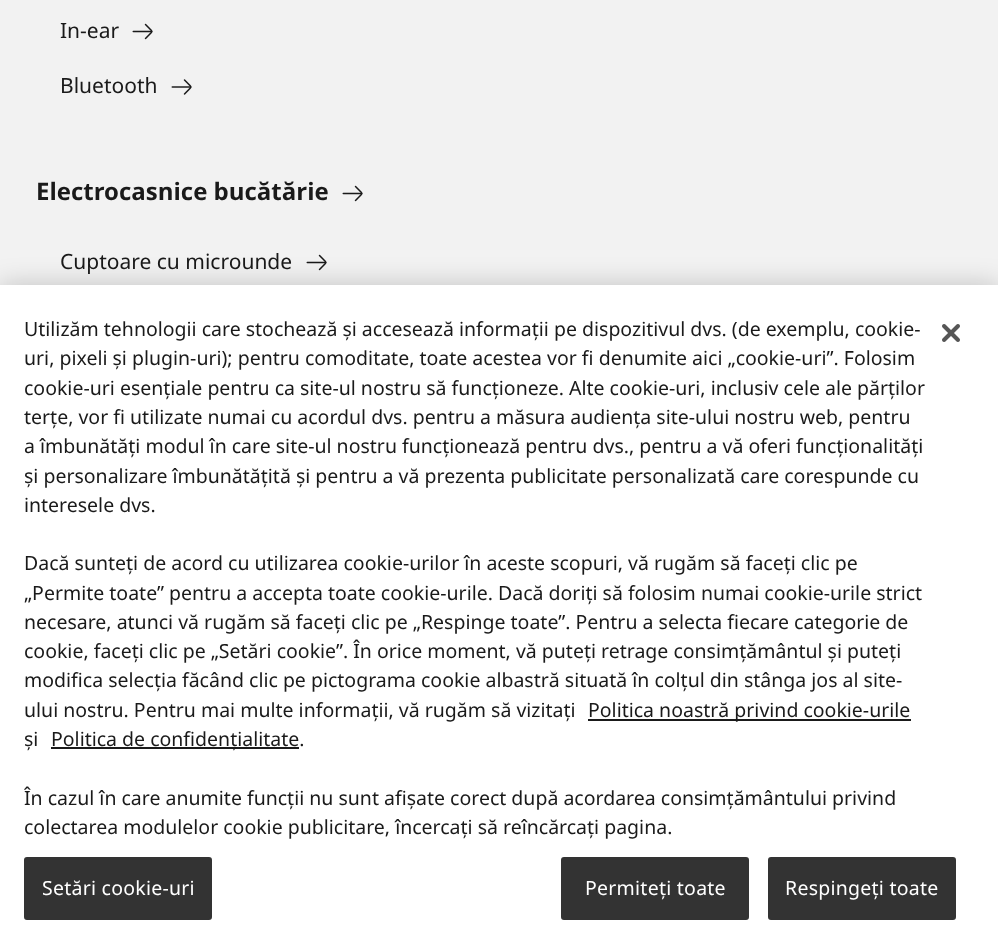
<svg xmlns="http://www.w3.org/2000/svg" width="998" height="950">
<rect width="100%" height="100%" fill="#f2f2f2"/>
<text x="60" y="38" style="font-family:Noto Sans;font-size:21px;fill:#1a1a1a">In-ear</text>
<image x="132" y="23" width="21" height="17" href="media/1.png"/>
<text x="60" y="93" style="font-family:Noto Sans;font-size:21px;fill:#1a1a1a">Bluetooth</text>
<image x="171" y="79" width="21" height="16" href="media/2.png"/>
<text x="36" y="200" style="font-family:Noto Sans;font-size:24px;font-weight:bold;fill:#1a1a1a">Electrocasnice bucătărie</text>
<image x="342" y="185" width="21" height="17" href="media/1.png"/>
<text x="60" y="269" style="font-family:Noto Sans;font-size:21px;fill:#1a1a1a">Cuptoare cu microunde</text>
<image x="306" y="254" width="21" height="17" href="media/1.png"/>
<rect y="285" width="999" height="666" fill="#00000033" filter="blur(13.5px)"/>
<rect y="285" width="998" height="665" fill="#fff"/>
<text x="24" y="336" style="font-family:Noto Sans;font-size:19.5px;fill:#1a1a1a">Utilizăm tehnologii care stochează și accesează informații pe dispozitivul dvs. (de exemplu, cookie-</text>
<text x="24" y="365" style="font-family:Noto Sans;font-size:19.5px;fill:#1a1a1a">uri, pixeli și plugin-uri); pentru comoditate, toate acestea vor fi denumite aici „cookie-uri”. Folosim</text>
<text x="24" y="395" style="font-family:Noto Sans;font-size:19.5px;fill:#1a1a1a">cookie-uri esențiale pentru ca site-ul nostru să funcționeze. Alte cookie-uri, inclusiv cele ale părților</text>
<text x="24" y="424" style="font-family:Noto Sans;font-size:19.5px;fill:#1a1a1a">terțe, vor fi utilizate numai cu acordul dvs. pentru a măsura audiența site-ului nostru web, pentru</text>
<text x="24" y="453" style="font-family:Noto Sans;font-size:19.5px;fill:#1a1a1a">a îmbunătăți modul în care site-ul nostru funcționează pentru dvs., pentru a vă oferi funcționalități</text>
<text x="24" y="483" style="font-family:Noto Sans;font-size:19.5px;fill:#1a1a1a">și personalizare îmbunătățită și pentru a vă prezenta publicitate personalizată care corespunde cu</text>
<text x="24" y="512" style="font-family:Noto Sans;font-size:19.5px;fill:#1a1a1a">interesele dvs.</text>
<text x="24" y="570" style="font-family:Noto Sans;font-size:19.5px;fill:#1a1a1a">Dacă sunteți de acord cu utilizarea cookie-urilor în aceste scopuri, vă rugăm să faceți clic pe</text>
<text x="24" y="600" style="font-family:Noto Sans;font-size:19.5px;fill:#1a1a1a">„Permite toate” pentru a accepta toate cookie-urile. Dacă doriți să folosim numai cookie-urile strict</text>
<text x="24" y="629" style="font-family:Noto Sans;font-size:19.5px;fill:#1a1a1a">necesare, atunci vă rugăm să faceți clic pe „Respinge toate”. Pentru a selecta fiecare categorie de</text>
<text x="24" y="658" style="font-family:Noto Sans;font-size:19.5px;fill:#1a1a1a">cookie, faceți clic pe „Setări cookie”. În orice moment, vă puteți retrage consimțământul și puteți</text>
<text x="24" y="687" style="font-family:Noto Sans;font-size:19.5px;fill:#1a1a1a">modifica selecția făcând clic pe pictograma cookie albastră situată în colțul din stânga jos al site-</text>
<text x="24" y="717" style="font-family:Noto Sans;font-size:19.5px;fill:#1a1a1a">ului nostru. Pentru mai multe informații, vă rugăm să vizitați</text>
<rect x="588" y="719" width="323" height="2" fill="#1a1a1a"/>
<text x="588" y="717" style="font-family:Noto Sans;font-size:19.5px;fill:#1a1a1a">Politica noastră privind cookie-urile</text>
<text x="24" y="746" style="font-family:Noto Sans;font-size:19.5px;fill:#1a1a1a">și</text>
<rect x="51" y="747" width="248" height="2" fill="#1a1a1a"/>
<text x="51" y="746" style="font-family:Noto Sans;font-size:19.5px;fill:#1a1a1a">Politica de confidențialitate.</text>
<text x="24" y="805" style="font-family:Noto Sans;font-size:19.5px;fill:#1a1a1a">În cazul în care anumite funcții nu sunt afișate corect după acordarea consimțământului privind</text>
<text x="24" y="834" style="font-family:Noto Sans;font-size:19.5px;fill:#1a1a1a">colectarea modulelor cookie publicitare, încercați să reîncărcați pagina.</text>
<rect x="25" y="858" width="186" height="61" rx="2" fill="#333" stroke="#333" stroke-width="2"/>
<text x="42" y="895" style="font-family:Noto Sans;font-size:19.5px;letter-spacing:0.25px;fill:#fff">Setări cookie-uri</text>
<rect x="562" y="858" width="186" height="61" rx="2" fill="#333" stroke="#333" stroke-width="2"/>
<text x="585" y="895" style="font-family:Noto Sans;font-size:19.5px;letter-spacing:0.25px;fill:#fff">Permiteți toate</text>
<rect x="769" y="858" width="186" height="61" rx="2" fill="#333" stroke="#333" stroke-width="2"/>
<text x="785" y="895" style="font-family:Noto Sans;font-size:19.5px;letter-spacing:0.25px;fill:#fff">Respingeți toate</text>
<image x="942" y="324" width="18" height="18" href="media/3.png"/>
</svg>
